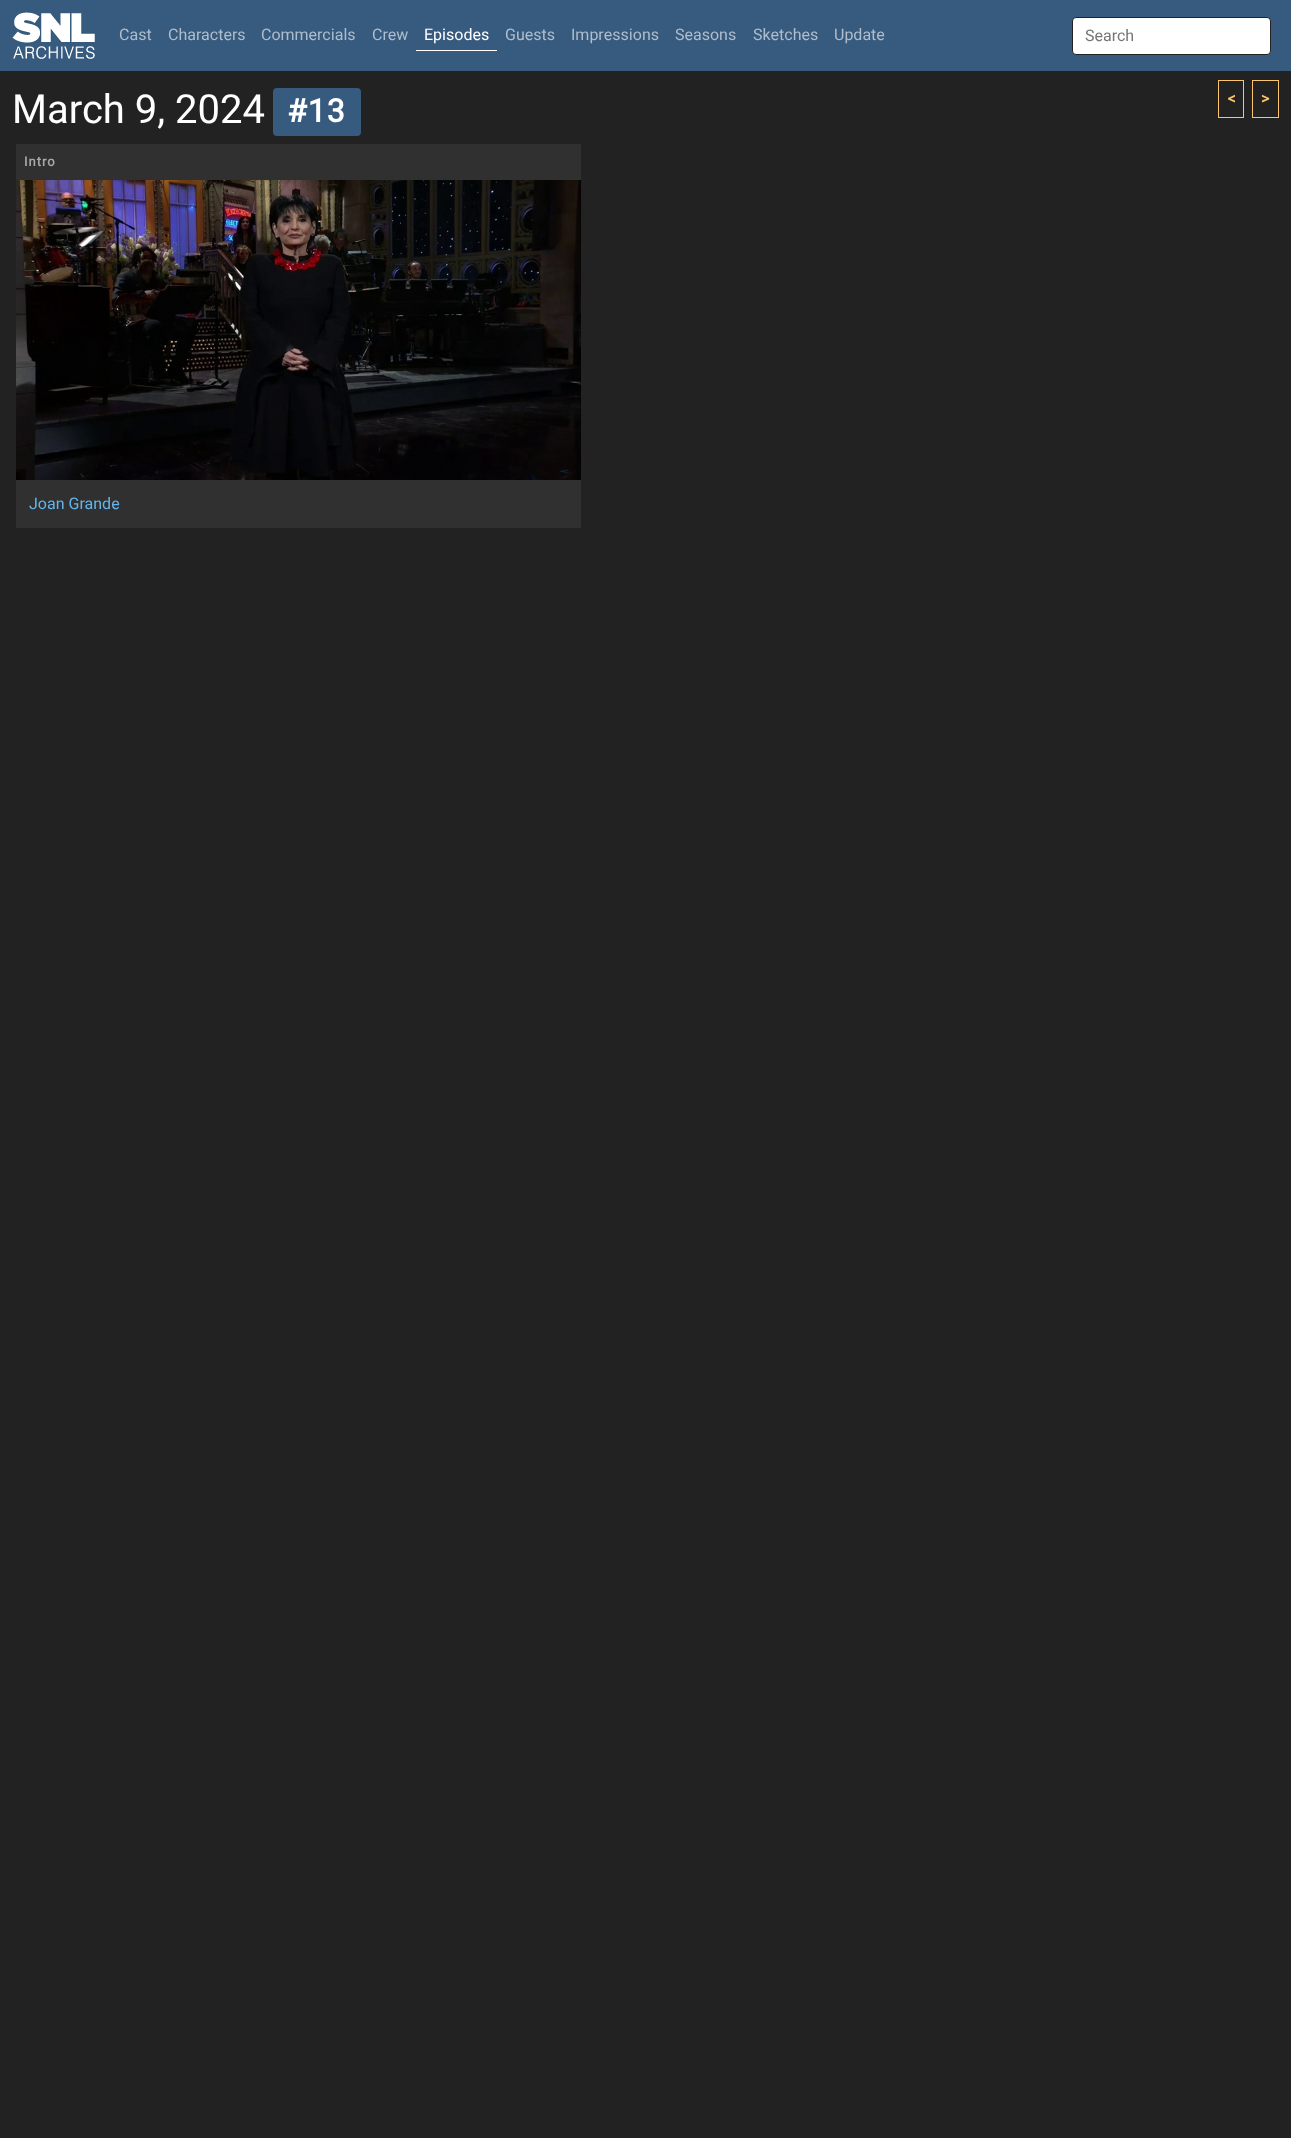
<svg xmlns="http://www.w3.org/2000/svg" width="1291" height="2138">
<rect width="100%" height="100%" fill="#222"/>
<rect width="1291" height="71" fill="#375a7f"/>
<image x="12" y="12" width="83" height="47" href="media/1.png"/>
<text x="119" y="40" style="font-family:Heebo;font-size:16px;fill:#afbdcc">Cast</text>
<text x="168" y="40" style="font-family:Heebo;font-size:16px;fill:#afbdcc">Characters</text>
<text x="261" y="40" style="font-family:Heebo;font-size:16px;fill:#afbdcc">Commercials</text>
<text x="372" y="40" style="font-family:Heebo;font-size:16px;fill:#afbdcc">Crew</text>
<rect x="416" y="50" width="81" height="1" fill="#fff"/>
<text x="424" y="40" style="font-family:Heebo;font-size:16px;fill:#fff">Episodes</text>
<text x="505" y="40" style="font-family:Heebo;font-size:16px;fill:#afbdcc">Guests</text>
<text x="571" y="40" style="font-family:Heebo;font-size:16px;fill:#afbdcc">Impressions</text>
<text x="675" y="40" style="font-family:Heebo;font-size:16px;fill:#afbdcc">Seasons</text>
<text x="753" y="40" style="font-family:Heebo;font-size:16px;fill:#afbdcc">Sketches</text>
<text x="834" y="40" style="font-family:Heebo;font-size:16px;fill:#afbdcc">Update</text>
<rect x="1072.5" y="17.5" width="198" height="37" rx="3.5" fill="#fff" stroke="#222"/>
<text x="1085" y="41" style="font-family:Heebo;font-size:16px;fill:#757575">Search</text>
<text x="12" y="123" style="font-family:Heebo;font-size:40px;fill:#fff">March 9, 2024</text>
<rect x="273" y="88" width="88" height="48" rx="4" fill="#375a7f"/>
<text x="287" y="122" style="font-family:Heebo;font-size:32px;font-weight:bold;letter-spacing:1px;fill:#fff">#13</text>
<rect x="1218.5" y="80.5" width="25" height="37" fill="none" stroke="#fcc36d"/>
<text x="1227" y="104" style="font-family:Heebo;font-size:16px;font-weight:bold;fill:#fcc36d">&lt;</text>
<rect x="1252.5" y="80.5" width="26" height="37" fill="none" stroke="#fcc36d"/>
<text x="1261" y="104" style="font-family:Heebo;font-size:16px;font-weight:bold;fill:#fcc36d">&gt;</text>
<rect x="16" y="144" width="565" height="384" fill="#303030"/>
<text x="24" y="166" style="font-family:Heebo;font-size:13px;font-weight:bold;letter-spacing:1px;fill:#aaa">Intro</text>
<image x="16" y="180" width="565" height="300" href="media/2.png"/>
<text x="29" y="509" style="font-family:Heebo;font-size:16px;fill:#64b5eb">Joan Grande</text>
</svg>
